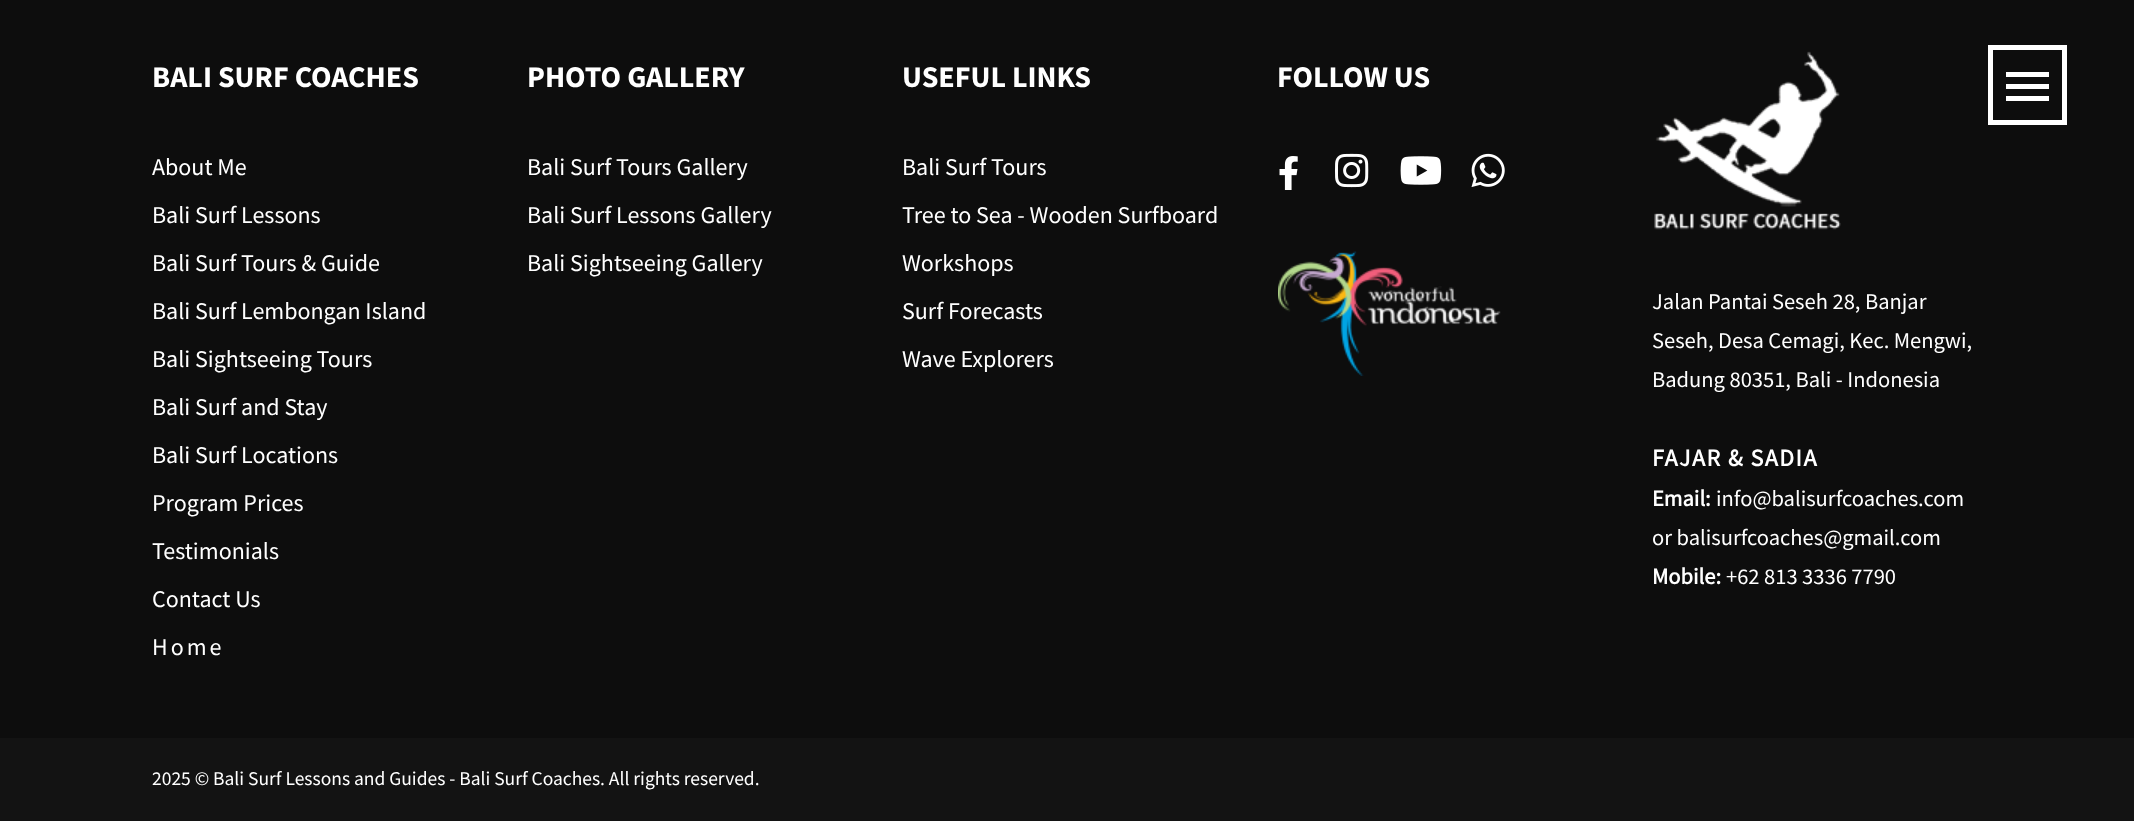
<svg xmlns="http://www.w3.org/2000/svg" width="2134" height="821">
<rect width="100%" height="100%" fill="#0d0d0d"/>
<text x="152" y="87" style="font-family:Source Sans Pro;font-size:30px;font-weight:bold;fill:#fff">BALI SURF COACHES</text>
<text x="152" y="175" style="font-family:Source Sans Pro;font-size:24px;fill:#fff">About Me</text>
<text x="152" y="223" style="font-family:Source Sans Pro;font-size:24px;fill:#fff">Bali Surf Lessons</text>
<text x="152" y="271" style="font-family:Source Sans Pro;font-size:24px;fill:#fff">Bali Surf Tours &amp; Guide</text>
<text x="152" y="319" style="font-family:Source Sans Pro;font-size:24px;fill:#fff">Bali Surf Lembongan Island</text>
<text x="152" y="367" style="font-family:Source Sans Pro;font-size:24px;fill:#fff">Bali Sightseeing Tours</text>
<text x="152" y="415" style="font-family:Source Sans Pro;font-size:24px;fill:#fff">Bali Surf and Stay</text>
<text x="152" y="463" style="font-family:Source Sans Pro;font-size:24px;fill:#fff">Bali Surf Locations</text>
<text x="152" y="511" style="font-family:Source Sans Pro;font-size:24px;fill:#fff">Program Prices</text>
<text x="152" y="559" style="font-family:Source Sans Pro;font-size:24px;fill:#fff">Testimonials</text>
<text x="152" y="607" style="font-family:Source Sans Pro;font-size:24px;fill:#fff">Contact Us</text>
<text x="152" y="655" style="font-family:Source Sans Pro;font-size:24px;letter-spacing:3px;fill:#fff">Home</text>
<text x="527" y="87" style="font-family:Source Sans Pro;font-size:30px;font-weight:bold;fill:#fff">PHOTO GALLERY</text>
<text x="527" y="175" style="font-family:Source Sans Pro;font-size:24px;fill:#fff">Bali Surf Tours Gallery</text>
<text x="527" y="223" style="font-family:Source Sans Pro;font-size:24px;fill:#fff">Bali Surf Lessons Gallery</text>
<text x="527" y="271" style="font-family:Source Sans Pro;font-size:24px;fill:#fff">Bali Sightseeing Gallery</text>
<text x="902" y="87" style="font-family:Source Sans Pro;font-size:30px;font-weight:bold;fill:#fff">USEFUL LINKS</text>
<text x="902" y="175" style="font-family:Source Sans Pro;font-size:24px;fill:#fff">Bali Surf Tours</text>
<text x="902" y="223" style="font-family:Source Sans Pro;font-size:24px;fill:#fff">Tree to Sea - Wooden Surfboard</text>
<text x="902" y="271" style="font-family:Source Sans Pro;font-size:24px;fill:#fff">Workshops</text>
<text x="902" y="319" style="font-family:Source Sans Pro;font-size:24px;fill:#fff">Surf Forecasts</text>
<text x="902" y="367" style="font-family:Source Sans Pro;font-size:24px;fill:#fff">Wave Explorers</text>
<text x="1277" y="87" style="font-family:Source Sans Pro;font-size:30px;font-weight:bold;fill:#fff">FOLLOW US</text>
<image x="1279" y="156" width="19" height="34" href="media/1.png"/>
<image x="1335" y="153" width="34" height="35" href="media/2.png"/>
<image x="1400" y="156" width="42" height="29" href="media/3.png"/>
<image x="1471" y="153" width="34" height="35" href="media/4.png"/>
<image x="1278" y="251" width="223" height="125" href="media/5.png"/>
<image x="1654" y="51" width="187" height="179" href="media/6.png"/>
<text x="1652" y="309" style="font-family:Source Sans Pro;font-size:22.5px;fill:#fff">Jalan Pantai Seseh 28, Banjar</text>
<text x="1652" y="348" style="font-family:Source Sans Pro;font-size:22.5px;fill:#fff">Seseh, Desa Cemagi, Kec. Mengwi,</text>
<text x="1652" y="387" style="font-family:Source Sans Pro;font-size:22.5px;fill:#fff">Badung 80351, Bali - Indonesia</text>
<text x="1652" y="466" style="font-family:'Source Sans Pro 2';font-size:24px;font-weight:bold;letter-spacing:1.5px;fill:#fff">FAJAR &amp; SADIA</text>
<text x="1652" y="506" style="font-family:'Source Sans Pro 2';font-size:22.5px;font-weight:bold;fill:#fff">Email:</text>
<text x="1716" y="506" style="font-family:Source Sans Pro;font-size:22.5px;fill:#fff">info@balisurfcoaches.com</text>
<text x="1652" y="545" style="font-family:Source Sans Pro;font-size:22.5px;fill:#fff">or balisurfcoaches@gmail.com</text>
<text x="1652" y="584" style="font-family:'Source Sans Pro 2';font-size:22.5px;font-weight:bold;fill:#fff">Mobile:</text>
<text x="1726" y="584" style="font-family:Source Sans Pro;font-size:22.5px;fill:#fff">+62 813 3336 7790</text>
<rect y="738" width="2134" height="83" fill="#131313"/>
<text x="152" y="785" style="font-family:Source Sans Pro;font-size:19.5px;fill:#fff">2025 © Bali Surf Lessons and Guides - Bali Surf Coaches. All rights reserved.</text>
<rect x="2006" y="72" width="43" height="5" fill="#fff"/>
<rect x="2006" y="96" width="43" height="5" fill="#fff"/>
<rect x="1990.5" y="47.5" width="74" height="75" fill="none" stroke="#fff" stroke-width="5"/>
<rect x="2006" y="84" width="43" height="5" fill="#fff"/>
</svg>
